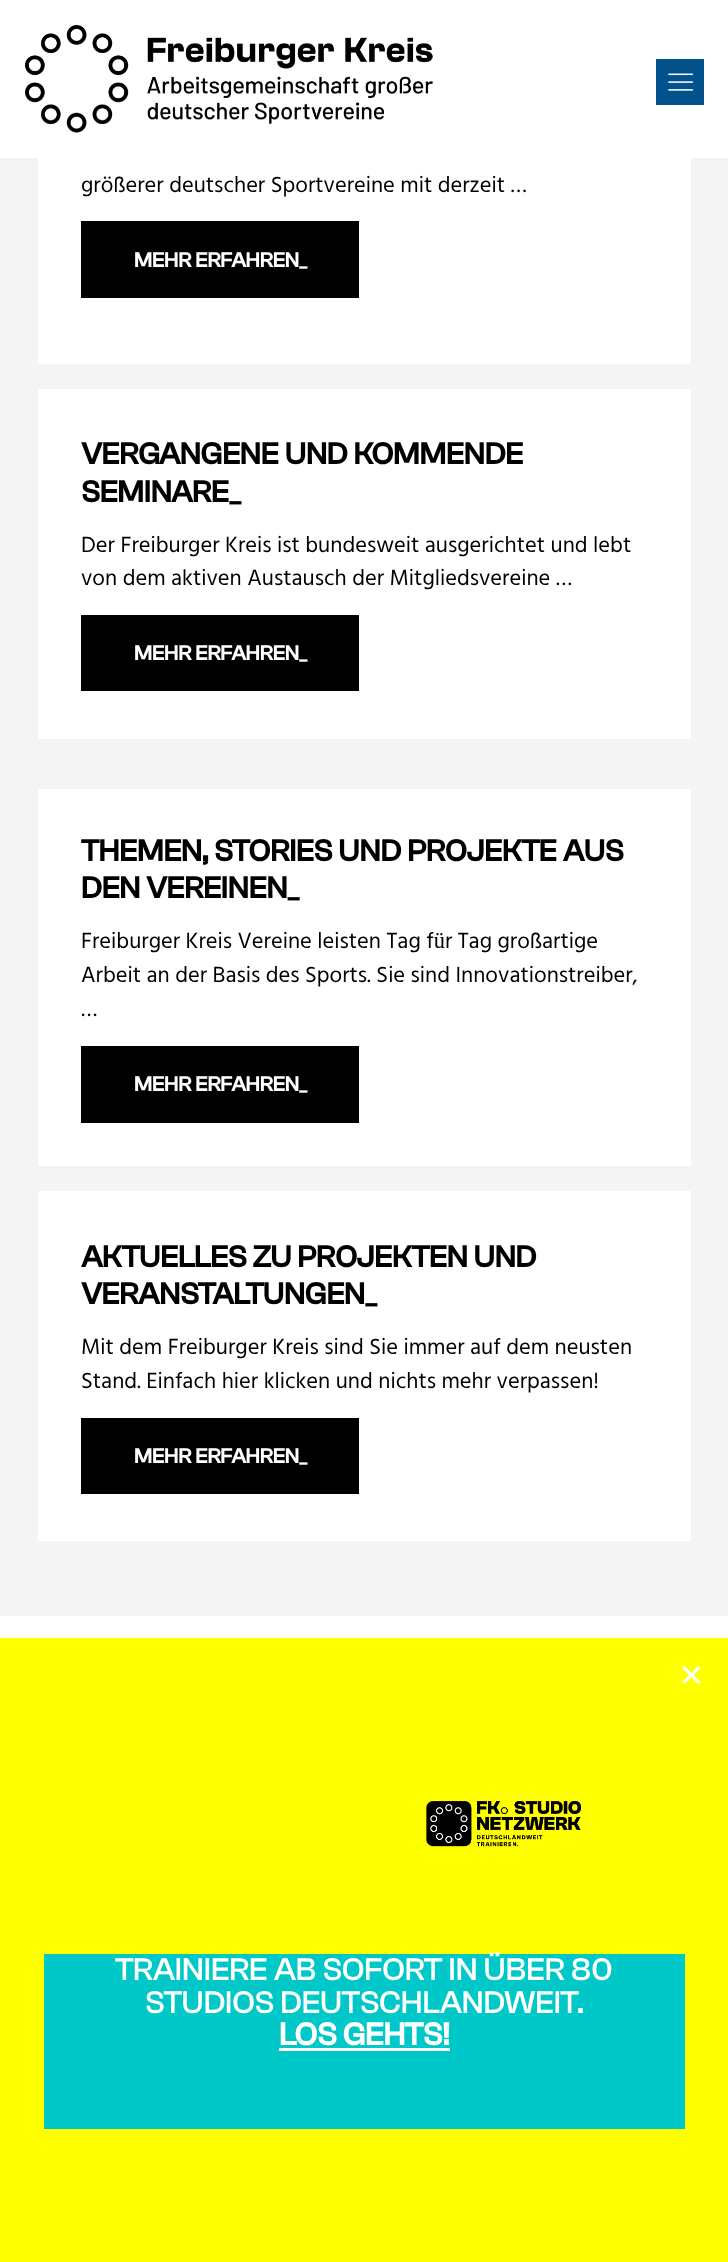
<svg xmlns="http://www.w3.org/2000/svg" width="728" height="2262">
<rect width="100%" height="100%" fill="#fff"/>
<image x="25" y="25" width="408" height="108" href="media/1.png"/>
<rect x="656" y="59" width="48" height="46" fill="#02528d"/>
<image x="668" y="73" width="26" height="18" href="media/2.png"/>
<rect y="158" width="728" height="1458" fill="#f4f4f4"/>
<rect x="38" y="158" width="653" height="206" fill="#fff"/>
<text x="81" y="192" style="font-family:Hind;font-size:22.5px;fill:#000">größerer deutscher Sportvereine mit derzeit …</text>
<rect x="81" y="221" width="278" height="77" fill="#000"/>
<text x="134" y="267" style="font-family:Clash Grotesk;font-size:21.25px;font-weight:bold;fill:#fff">MEHR ERFAHREN_</text>
<rect x="38" y="389" width="653" height="350" fill="#fff"/>
<text x="81" y="464" style="font-family:Clash Grotesk;font-size:31.25px;font-weight:bold;fill:#000">VERGANGENE UND KOMMENDE</text>
<text x="81" y="502" style="font-family:Clash Grotesk;font-size:31.25px;font-weight:bold;fill:#000">SEMINARE_</text>
<text x="81" y="552" style="font-family:Hind;font-size:22.5px;fill:#000">Der Freiburger Kreis ist bundesweit ausgerichtet und lebt</text>
<text x="81" y="585" style="font-family:Hind;font-size:22.5px;fill:#000">von dem aktiven Austausch der Mitgliedsvereine …</text>
<rect x="81" y="615" width="278" height="76" fill="#000"/>
<text x="134" y="660" style="font-family:Clash Grotesk;font-size:21.25px;font-weight:bold;fill:#fff">MEHR ERFAHREN_</text>
<rect x="38" y="789" width="653" height="377" fill="#fff"/>
<text x="81" y="861" style="font-family:Clash Grotesk;font-size:31.25px;font-weight:bold;fill:#000">THEMEN, STORIES UND PROJEKTE AUS</text>
<text x="81" y="898" style="font-family:Clash Grotesk;font-size:31.25px;font-weight:bold;fill:#000">DEN VEREINEN_</text>
<text x="81" y="948" style="font-family:Hind;font-size:22.5px;fill:#000">Freiburger Kreis Vereine leisten Tag für Tag großartige</text>
<text x="81" y="982" style="font-family:Hind;font-size:22.5px;fill:#000">Arbeit an der Basis des Sports. Sie sind Innovationstreiber,</text>
<text x="81" y="1016" style="font-family:Hind;font-size:22.5px;fill:#000">…</text>
<rect x="81" y="1046" width="278" height="77" fill="#000"/>
<text x="134" y="1091" style="font-family:Clash Grotesk;font-size:21.25px;font-weight:bold;fill:#fff">MEHR ERFAHREN_</text>
<rect x="38" y="1191" width="653" height="350" fill="#fff"/>
<text x="81" y="1267" style="font-family:Clash Grotesk;font-size:31.25px;font-weight:bold;fill:#000">AKTUELLES ZU PROJEKTEN UND</text>
<text x="81" y="1304" style="font-family:Clash Grotesk;font-size:31.25px;font-weight:bold;fill:#000">VERANSTALTUNGEN_</text>
<text x="81" y="1354" style="font-family:Hind;font-size:22.5px;fill:#000">Mit dem Freiburger Kreis sind Sie immer auf dem neusten</text>
<text x="81" y="1388" style="font-family:Hind;font-size:22.5px;fill:#000">Stand. Einfach hier klicken und nichts mehr verpassen!</text>
<rect x="81" y="1418" width="278" height="76" fill="#000"/>
<text x="134" y="1463" style="font-family:Clash Grotesk;font-size:21.25px;font-weight:bold;fill:#fff">MEHR ERFAHREN_</text>
<rect y="1638" width="728" height="624" fill="#ff0"/>
<image x="682" y="1666" width="19" height="18" href="media/3.png"/>
<image x="426" y="1801" width="155" height="46" href="media/4.png"/>
<rect x="44" y="1954" width="641" height="175" fill="#00c8c8"/>
<text x="115" y="1980" style="font-family:Clash Grotesk;font-size:32.5px;font-weight:500;fill:#fff">TRAINIERE AB SOFORT IN ÜBER 80</text>
<text x="145" y="2013" style="font-family:Clash Grotesk;font-size:32.5px;font-weight:500;fill:#fff">STUDIOS DEUTSCHLANDWEIT.</text>
<text x="279" y="2045" style="font-family:Clash Grotesk;font-size:32.5px;font-weight:bold;fill:#fff">LOS GEHTS!</text>
<rect x="279" y="2048" width="171" height="3" fill="#fff"/>
</svg>
